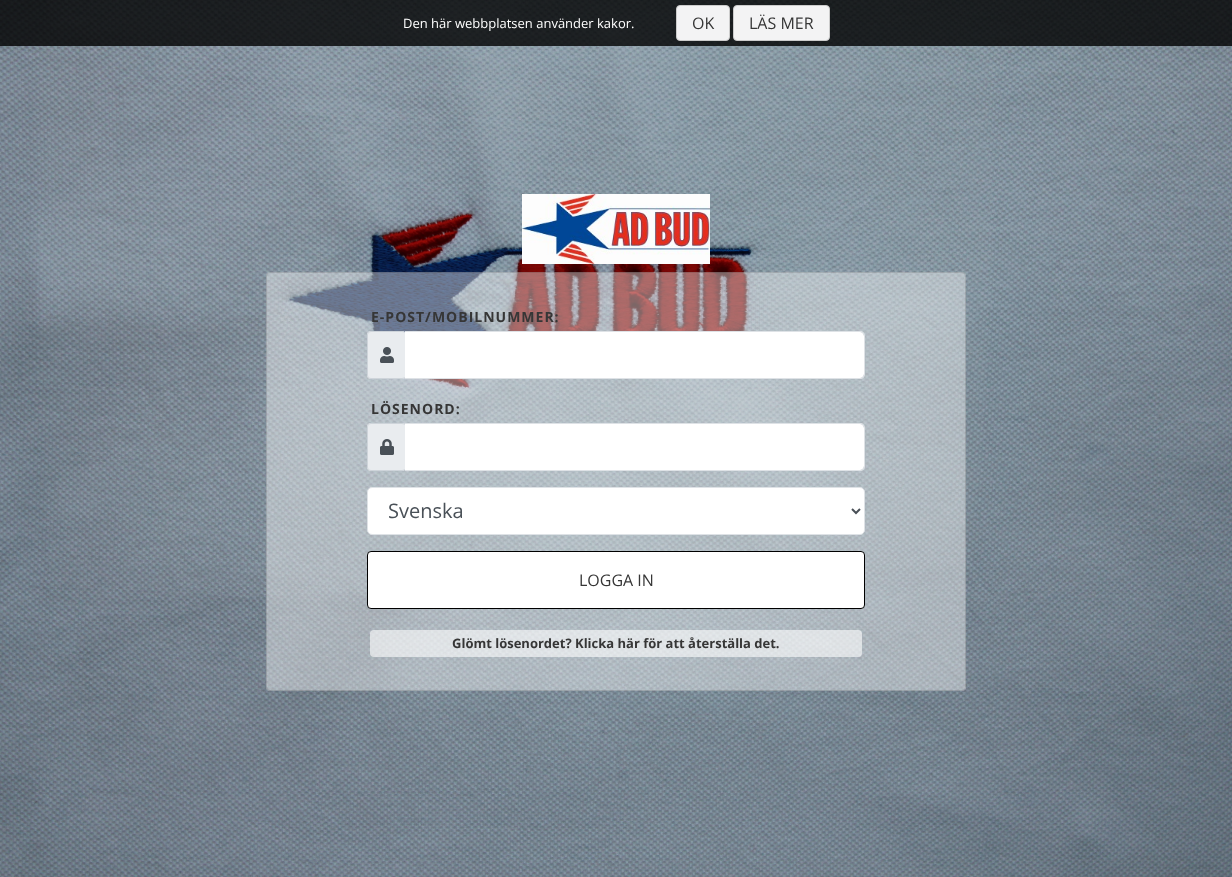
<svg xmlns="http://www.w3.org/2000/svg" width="1232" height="877">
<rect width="100%" height="100%" fill="#fff"/>
<image x="0" y="0" width="1232" height="877" href="media/1.png"/>
<rect width="1232" height="46" fill="#000000cc"/>
<text x="403" y="28" style="font-family:Open Sans;font-size:13px;fill:#fff">Den här webbplatsen använder kakor.</text>
<rect x="676.5" y="5.5" width="53" height="35" rx="3.5" fill="#f3f3f4" stroke="#ccc"/>
<text x="692" y="29" style="font-family:Open Sans;font-size:16px;fill:#363636">OK</text>
<rect x="733.5" y="5.5" width="96" height="35" rx="3.5" fill="#f3f3f4" stroke="#ccc"/>
<text x="749" y="29" style="font-family:Open Sans;font-size:16px;fill:#363636">LÄS MER</text>
<image x="522" y="194" width="188" height="70" href="media/2.png"/>
<rect x="266" y="272" width="700" height="419" rx="4" fill="#ffffff66"/>
<rect x="266.5" y="272.5" width="699" height="418" rx="3.5" fill="none" stroke="#0000001f"/>
<text x="371" y="322" style="font-family:Open Sans;font-size:14px;font-weight:bold;letter-spacing:1px;fill:#363636">E-POST/MOBILNUMMER:</text>
<rect x="367" y="331" width="39" height="48" rx="4" fill="#e9ecef"/>
<path d="M371 331h31c2 0 4 2 4 4v40c0 2-2 4-4 4h-31c-2 0-4-2-4-4v-40c0-2 2-4 4-4zm0 1h31c2 0 4 1 4 3v40c0 2-2 3-4 3h-31c-2 0-3-1-3-3v-40c0-2 1-3 3-3z" fill="#ced4da" fill-rule="evenodd"/>
<image x="380" y="347" width="14" height="16" href="media/3.png"/>
<path d="M405 332h455c2 0 4 2 4 4v38c0 2-2 4-4 4h-455z" fill="#fff"/>
<path d="M405 331h455c3 0 5 2 5 5v38c0 3-2 5-5 5h-455zm0 1h455c2 0 4 2 4 4v38c0 2-2 4-4 4h-455z" fill="#dee2e6" fill-rule="evenodd"/>
<text x="371" y="414" style="font-family:Open Sans;font-size:14px;font-weight:bold;letter-spacing:1px;fill:#363636">LÖSENORD:</text>
<rect x="367" y="423" width="39" height="48" rx="4" fill="#e9ecef"/>
<path d="M371 423h31c2 0 4 2 4 4v40c0 2-2 4-4 4h-31c-2 0-4-2-4-4v-40c0-2 2-4 4-4zm0 1h31c2 0 4 1 4 3v40c0 2-2 3-4 3h-31c-2 0-3-1-3-3v-40c0-2 1-3 3-3z" fill="#ced4da" fill-rule="evenodd"/>
<image x="380" y="439" width="14" height="16" href="media/4.png"/>
<path d="M405 424h455c2 0 4 2 4 4v38c0 2-2 4-4 4h-455z" fill="#fff"/>
<path d="M405 423h455c3 0 5 2 5 5v38c0 3-2 5-5 5h-455zm0 1h455c2 0 4 2 4 4v38c0 2-2 4-4 4h-455z" fill="#dee2e6" fill-rule="evenodd"/>
<rect x="367.5" y="487.5" width="497" height="47" rx="4.5" fill="#fff" stroke="#dee2e6"/>
<path d="M852 509l4 4l4-4" fill="none" stroke="#495057" stroke-width="2"/>
<text x="388" y="518" style="font-family:Open Sans;font-size:20px;fill:#495057">Svenska</text>
<rect x="367.5" y="551.5" width="497" height="57" rx="3.5" fill="#fff" stroke="#000"/>
<text x="579" y="586" style="font-family:Open Sans;font-size:16px;fill:#363636">LOGGA IN</text>
<rect x="370" y="630" width="492" height="27" rx="4" fill="#ffffff99"/>
<text x="452" y="648" style="font-family:Open Sans;font-size:13px;font-weight:bold;fill:#363636">Glömt lösenordet? Klicka här för att återställa det.</text>
</svg>
